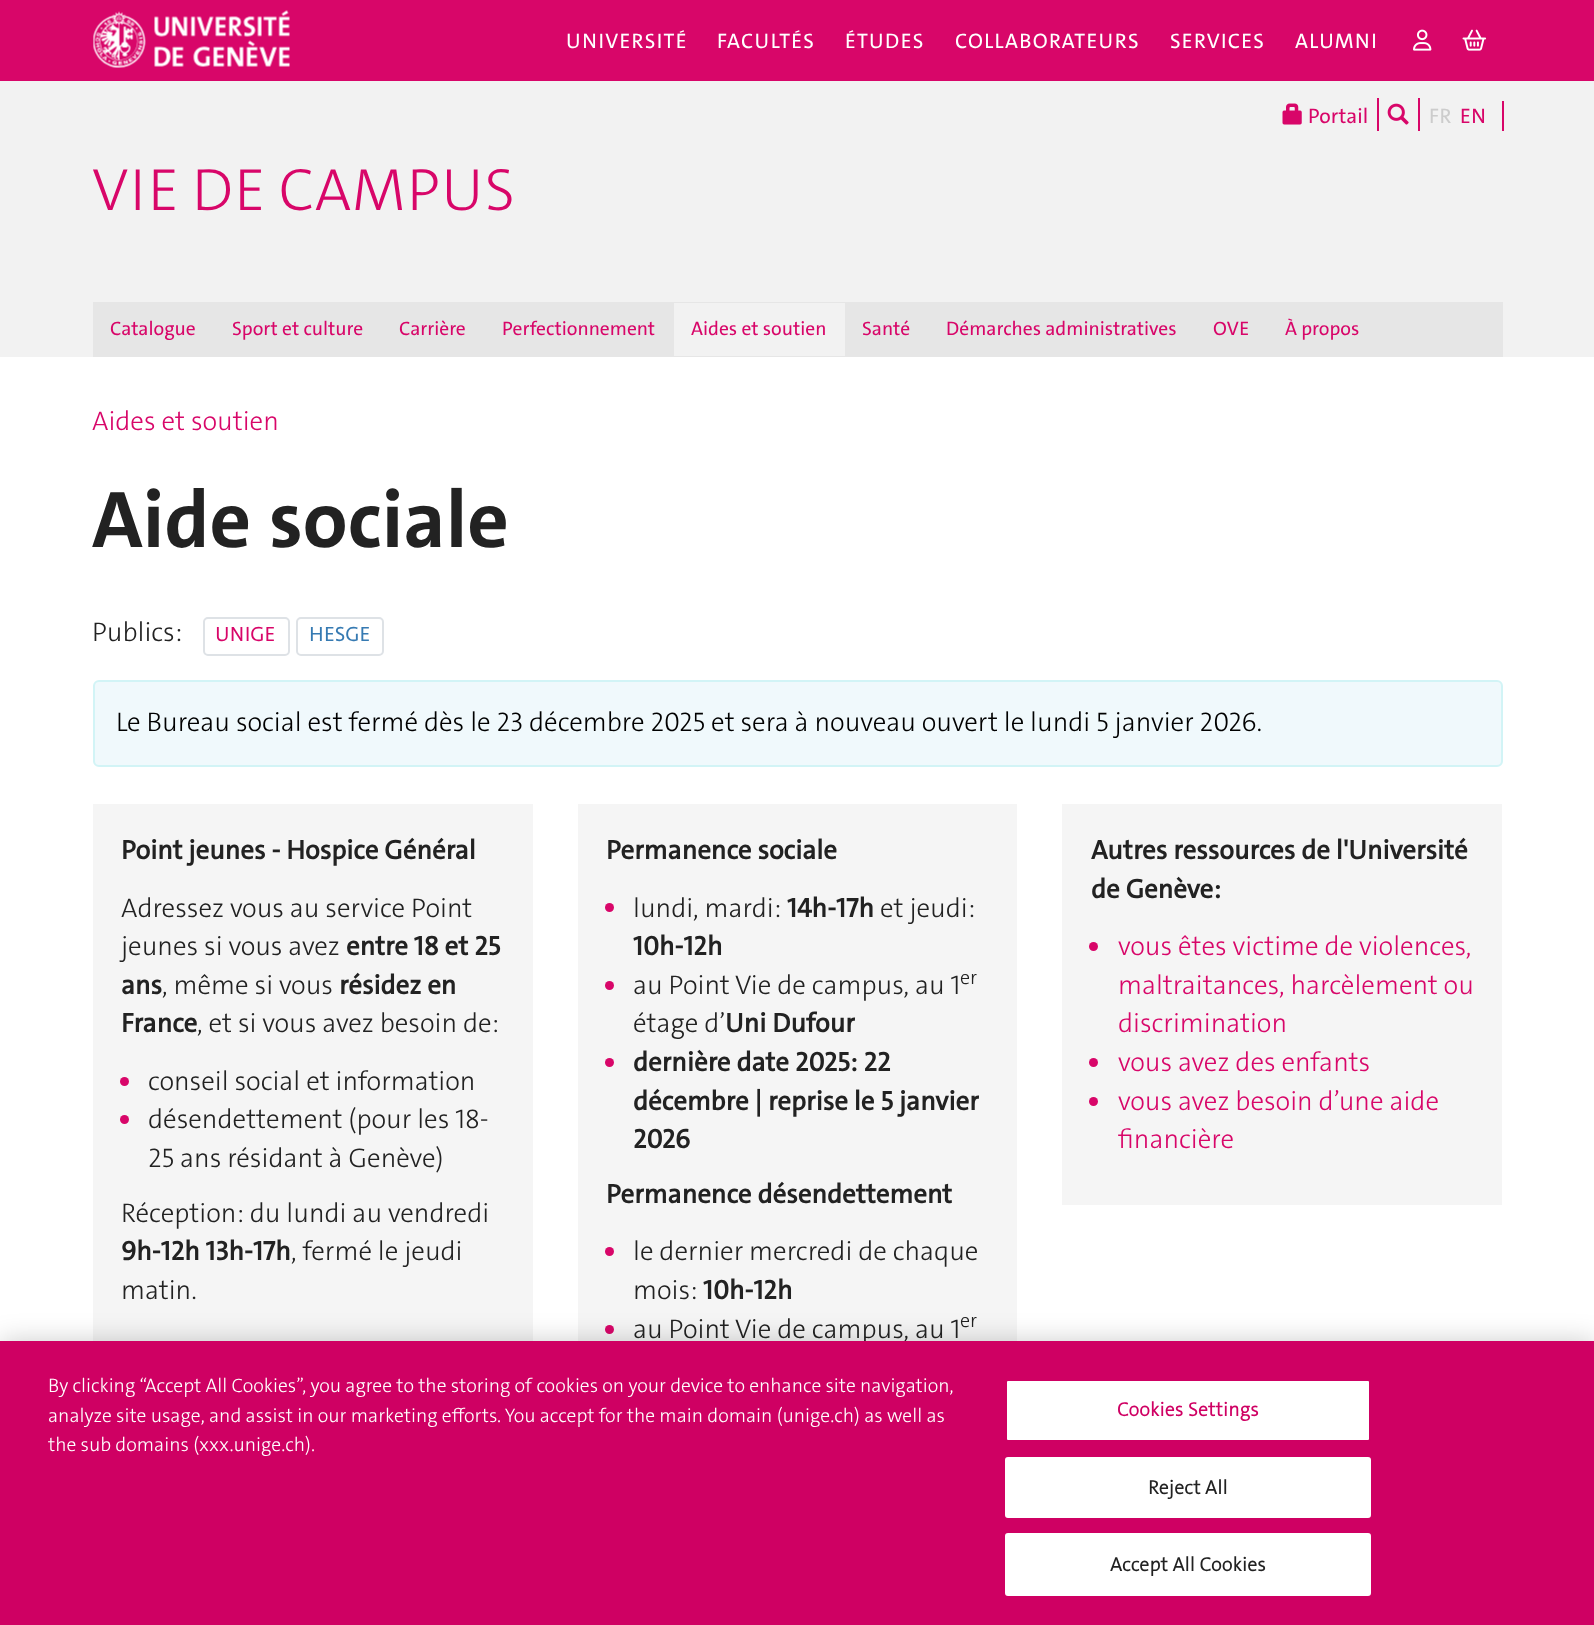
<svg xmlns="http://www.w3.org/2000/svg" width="1594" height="1625">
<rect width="100%" height="100%" fill="#fff"/>
<rect width="1594" height="81" fill="#d80669"/>
<image x="93" y="10" width="197" height="58" href="media/1.png"/>
<text x="566" y="48" style="font-family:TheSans;font-size:21px;letter-spacing:0.8px;fill:#fff">UNIVERSITÉ</text>
<text x="717" y="48" style="font-family:TheSans;font-size:21px;letter-spacing:0.8px;fill:#fff">FACULTÉS</text>
<text x="845" y="48" style="font-family:TheSans;font-size:21px;letter-spacing:0.8px;fill:#fff">ÉTUDES</text>
<text x="955" y="48" style="font-family:TheSans;font-size:21px;letter-spacing:0.8px;fill:#fff">COLLABORATEURS</text>
<text x="1170" y="48" style="font-family:TheSans;font-size:21px;letter-spacing:0.8px;fill:#fff">SERVICES</text>
<text x="1295" y="48" style="font-family:TheSans;font-size:21px;letter-spacing:0.8px;fill:#fff">ALUMNI</text>
<image x="1413" y="29" width="19" height="22" href="media/2.png"/>
<image x="1462" y="29" width="25" height="22" href="media/3.png"/>
<rect y="81" width="1594" height="276" fill="#f2f2f2"/>
<rect x="1377" y="98" width="2" height="33" fill="#d80669"/>
<image x="1282" y="103" width="20" height="22" href="media/4.png"/>
<text x="1308" y="123" style="font-family:TheSans;font-size:21px;fill:#d80669">Portail</text>
<rect x="1418" y="98" width="2" height="33" fill="#d80669"/>
<image x="1387" y="103" width="22" height="22" href="media/5.png"/>
<rect x="1502" y="101" width="2" height="30" fill="#d80669"/>
<text x="1429" y="123" style="font-family:TheSans;font-size:21px;fill:#ccc">FR</text>
<text x="1460" y="123" style="font-family:TheSans;font-size:21px;fill:#d80669">EN</text>
<text x="92" y="210" style="font-family:TheSans;font-size:60px;font-weight:300;fill:#d80669">VIE DE CAMPUS</text>
<rect x="93" y="302" width="1410" height="55" fill="#e6e6e6"/>
<text x="110" y="335" style="font-family:TheSans;font-size:19.5px;fill:#d80669">Catalogue</text>
<text x="232" y="335" style="font-family:TheSans;font-size:19.5px;fill:#d80669">Sport et culture</text>
<text x="399" y="335" style="font-family:TheSans;font-size:19.5px;fill:#d80669">Carrière</text>
<text x="502" y="335" style="font-family:TheSans;font-size:19.5px;fill:#d80669">Perfectionnement</text>
<rect x="674" y="303" width="171" height="53" fill="#f2f2f2"/>
<text x="691" y="335" style="font-family:TheSans;font-size:19.5px;fill:#d80669">Aides et soutien</text>
<text x="862" y="335" style="font-family:TheSans;font-size:19.5px;fill:#d80669">Santé</text>
<text x="946" y="335" style="font-family:TheSans;font-size:19.5px;fill:#d80669">Démarches administratives</text>
<text x="1213" y="335" style="font-family:TheSans;font-size:19.5px;fill:#d80669">OVE</text>
<text x="1285" y="335" style="font-family:TheSans;font-size:19.5px;fill:#d80669">À propos</text>
<text x="92" y="430" style="font-family:TheSans;font-size:27px;font-weight:300;fill:#d80669">Aides et soutien</text>
<text x="92" y="547" style="font-family:TheSans;font-size:81px;font-weight:bold;fill:#222">Aide sociale</text>
<text x="92" y="641" style="font-family:TheSans;font-size:27px;font-weight:300;fill:#222">Publics:</text>
<rect x="204" y="618" width="85" height="37" rx="4" fill="none" stroke="#dee2e6" stroke-width="2"/>
<text x="215" y="641" style="font-family:'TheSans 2';font-size:20px;font-weight:bold;fill:#d80669">UNIGE</text>
<rect x="297" y="618" width="86" height="37" rx="4" fill="none" stroke="#dee2e6" stroke-width="2"/>
<text x="309" y="641" style="font-family:'TheSans 2';font-size:20px;font-weight:bold;fill:#367ab2">HESGE</text>
<rect x="94" y="681" width="1408" height="85" rx="5" fill="#f0f9fc" stroke="#d2f4f6" stroke-width="2"/>
<text x="116" y="731" style="font-family:TheSans;font-size:27px;font-weight:300;fill:#000">Le Bureau social est fermé dès le 23 décembre 2025 et sera à nouveau ouvert le lundi 5 janvier 2026.</text>
<rect x="93" y="804" width="440" height="537" fill="#f5f5f5"/>
<text x="121" y="859" style="font-family:'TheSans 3';font-size:27px;font-weight:bold;fill:#222">Point jeunes - Hospice Général</text>
<text x="121" y="917" style="font-family:TheSans;font-size:27px;font-weight:300;fill:#222">Adressez vous au service Point</text>
<text x="121" y="955" style="font-family:TheSans;font-size:27px;font-weight:300;fill:#222">jeunes si vous avez</text>
<text x="346" y="955" style="font-family:'TheSans 3';font-size:27px;font-weight:bold;fill:#222">entre 18 et 25</text>
<text x="121" y="994" style="font-family:'TheSans 3';font-size:27px;font-weight:bold;fill:#222">ans</text>
<text x="162" y="994" style="font-family:TheSans;font-size:27px;font-weight:300;fill:#222">, même si vous</text>
<text x="339" y="994" style="font-family:'TheSans 3';font-size:27px;font-weight:bold;fill:#222">résidez en</text>
<text x="121" y="1032" style="font-family:'TheSans 3';font-size:27px;font-weight:bold;fill:#222">France</text>
<text x="197" y="1032" style="font-family:TheSans;font-size:27px;font-weight:300;fill:#222">, et si vous avez besoin de:</text>
<circle cx="124.5" cy="1081.5" r="4.5" fill="#d80669"/>
<text x="148" y="1090" style="font-family:TheSans;font-size:27px;font-weight:300;fill:#222">conseil social et information</text>
<circle cx="124.5" cy="1119.5" r="4.5" fill="#d80669"/>
<text x="148" y="1128" style="font-family:TheSans;font-size:27px;font-weight:300;fill:#222">désendettement (pour les 18-</text>
<text x="148" y="1167" style="font-family:TheSans;font-size:27px;font-weight:300;fill:#222">25 ans résidant à Genève)</text>
<text x="121" y="1222" style="font-family:TheSans;font-size:27px;font-weight:300;fill:#222">Réception: du lundi au vendredi</text>
<text x="121" y="1260" style="font-family:'TheSans 3';font-size:27px;font-weight:bold;fill:#222">9h-12h 13h-17h</text>
<text x="291" y="1260" style="font-family:TheSans;font-size:27px;font-weight:300;fill:#222">, fermé le jeudi</text>
<text x="121" y="1299" style="font-family:TheSans;font-size:27px;font-weight:300;fill:#222">matin.</text>
<rect x="578" y="804" width="439" height="537" fill="#f5f5f5"/>
<text x="606" y="859" style="font-family:'TheSans 3';font-size:27px;font-weight:bold;fill:#222">Permanence sociale</text>
<circle cx="609.5" cy="907.5" r="4.5" fill="#d80669"/>
<text x="633" y="917" style="font-family:TheSans;font-size:27px;font-weight:300;fill:#222">lundi, mardi:</text>
<text x="787" y="917" style="font-family:'TheSans 3';font-size:27px;font-weight:bold;fill:#222">14h-17h</text>
<text x="880" y="917" style="font-family:TheSans;font-size:27px;font-weight:300;fill:#222">et jeudi:</text>
<text x="633" y="955" style="font-family:'TheSans 3';font-size:27px;font-weight:bold;fill:#222">10h-12h</text>
<circle cx="609.5" cy="985.5" r="4.5" fill="#d80669"/>
<text x="633" y="994" style="font-family:TheSans;font-size:27px;font-weight:300;fill:#222">au Point Vie de campus, au 1</text>
<text x="960" y="984" style="font-family:TheSans;font-size:20px;font-weight:300;fill:#222">er</text>
<text x="633" y="1032" style="font-family:TheSans;font-size:27px;font-weight:300;fill:#222">étage d’</text>
<text x="725" y="1032" style="font-family:'TheSans 3';font-size:27px;font-weight:bold;fill:#222">Uni Dufour</text>
<circle cx="609.5" cy="1062.5" r="4.5" fill="#d80669"/>
<text x="633" y="1071" style="font-family:'TheSans 3';font-size:27px;font-weight:bold;fill:#222">dernière date 2025: 22</text>
<text x="633" y="1110" style="font-family:'TheSans 3';font-size:27px;font-weight:bold;fill:#222">décembre | reprise le 5 janvier</text>
<text x="633" y="1148" style="font-family:'TheSans 3';font-size:27px;font-weight:bold;fill:#222">2026</text>
<text x="606" y="1203" style="font-family:'TheSans 3';font-size:27px;font-weight:bold;fill:#222">Permanence désendettement</text>
<circle cx="609.5" cy="1251.5" r="4.5" fill="#d80669"/>
<text x="633" y="1260" style="font-family:TheSans;font-size:27px;font-weight:300;fill:#222">le dernier mercredi de chaque</text>
<text x="633" y="1299" style="font-family:TheSans;font-size:27px;font-weight:300;fill:#222">mois:</text>
<text x="703" y="1299" style="font-family:'TheSans 3';font-size:27px;font-weight:bold;fill:#222">10h-12h</text>
<circle cx="609.5" cy="1329.5" r="4.5" fill="#d80669"/>
<text x="633" y="1338" style="font-family:TheSans;font-size:27px;font-weight:300;fill:#222">au Point Vie de campus, au 1</text>
<text x="960" y="1327" style="font-family:TheSans;font-size:20px;font-weight:300;fill:#222">er</text>
<rect x="1062" y="804" width="440" height="401" fill="#f5f5f5"/>
<text x="1091" y="859" style="font-family:'TheSans 3';font-size:27px;font-weight:bold;fill:#222">Autres ressources de l'Université</text>
<text x="1091" y="898" style="font-family:'TheSans 3';font-size:27px;font-weight:bold;fill:#222">de Genève:</text>
<circle cx="1093.5" cy="946.5" r="4.5" fill="#d80669"/>
<text x="1118" y="955" style="font-family:TheSans;font-size:27px;font-weight:300;fill:#d80669">vous êtes victime de violences,</text>
<text x="1118" y="994" style="font-family:TheSans;font-size:27px;font-weight:300;fill:#d80669">maltraitances, harcèlement ou</text>
<text x="1118" y="1032" style="font-family:TheSans;font-size:27px;font-weight:300;fill:#d80669">discrimination</text>
<circle cx="1093.5" cy="1062.5" r="4.5" fill="#d80669"/>
<text x="1118" y="1071" style="font-family:TheSans;font-size:27px;font-weight:300;fill:#d80669">vous avez des enfants</text>
<circle cx="1093.5" cy="1101.5" r="4.5" fill="#d80669"/>
<text x="1118" y="1110" style="font-family:TheSans;font-size:27px;font-weight:300;fill:#d80669">vous avez besoin d’une aide</text>
<text x="1118" y="1148" style="font-family:TheSans;font-size:27px;font-weight:300;fill:#d80669">financière</text>
<rect y="1341" width="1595" height="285" fill="#00000033" filter="blur(13.5px)"/>
<rect y="1341" width="1594" height="284" fill="#cf0063"/>
<text x="48" y="1392" style="font-family:TheSans;font-size:19.5px;font-weight:300;fill:#fff">By clicking “Accept All Cookies”, you agree to the storing of cookies on your device to enhance site navigation,</text>
<text x="48" y="1422" style="font-family:TheSans;font-size:19.5px;font-weight:300;fill:#fff">analyze site usage, and assist in our marketing efforts. You accept for the main domain (unige.ch) as well as</text>
<text x="48" y="1451" style="font-family:TheSans;font-size:19.5px;font-weight:300;fill:#fff">the sub domains (xxx.unige.ch).</text>
<rect x="1006" y="1380" width="364" height="61" rx="2" fill="#fff" stroke="#cf0063" stroke-width="2"/>
<text x="1117" y="1416" style="font-family:'TheSans 2';font-size:19.5px;font-weight:bold;letter-spacing:0.25px;fill:#cf0063">Cookies Settings</text>
<rect x="1006" y="1458" width="364" height="59" rx="2" fill="#fff" stroke="#fff" stroke-width="2"/>
<text x="1148" y="1494" style="font-family:'TheSans 2';font-size:19.5px;font-weight:bold;letter-spacing:0.25px;fill:#222">Reject All</text>
<rect x="1006" y="1534" width="364" height="61" rx="2" fill="#fff" stroke="#fff" stroke-width="2"/>
<text x="1110" y="1571" style="font-family:'TheSans 2';font-size:19.5px;font-weight:bold;letter-spacing:0.25px;fill:#222">Accept All Cookies</text>
</svg>
